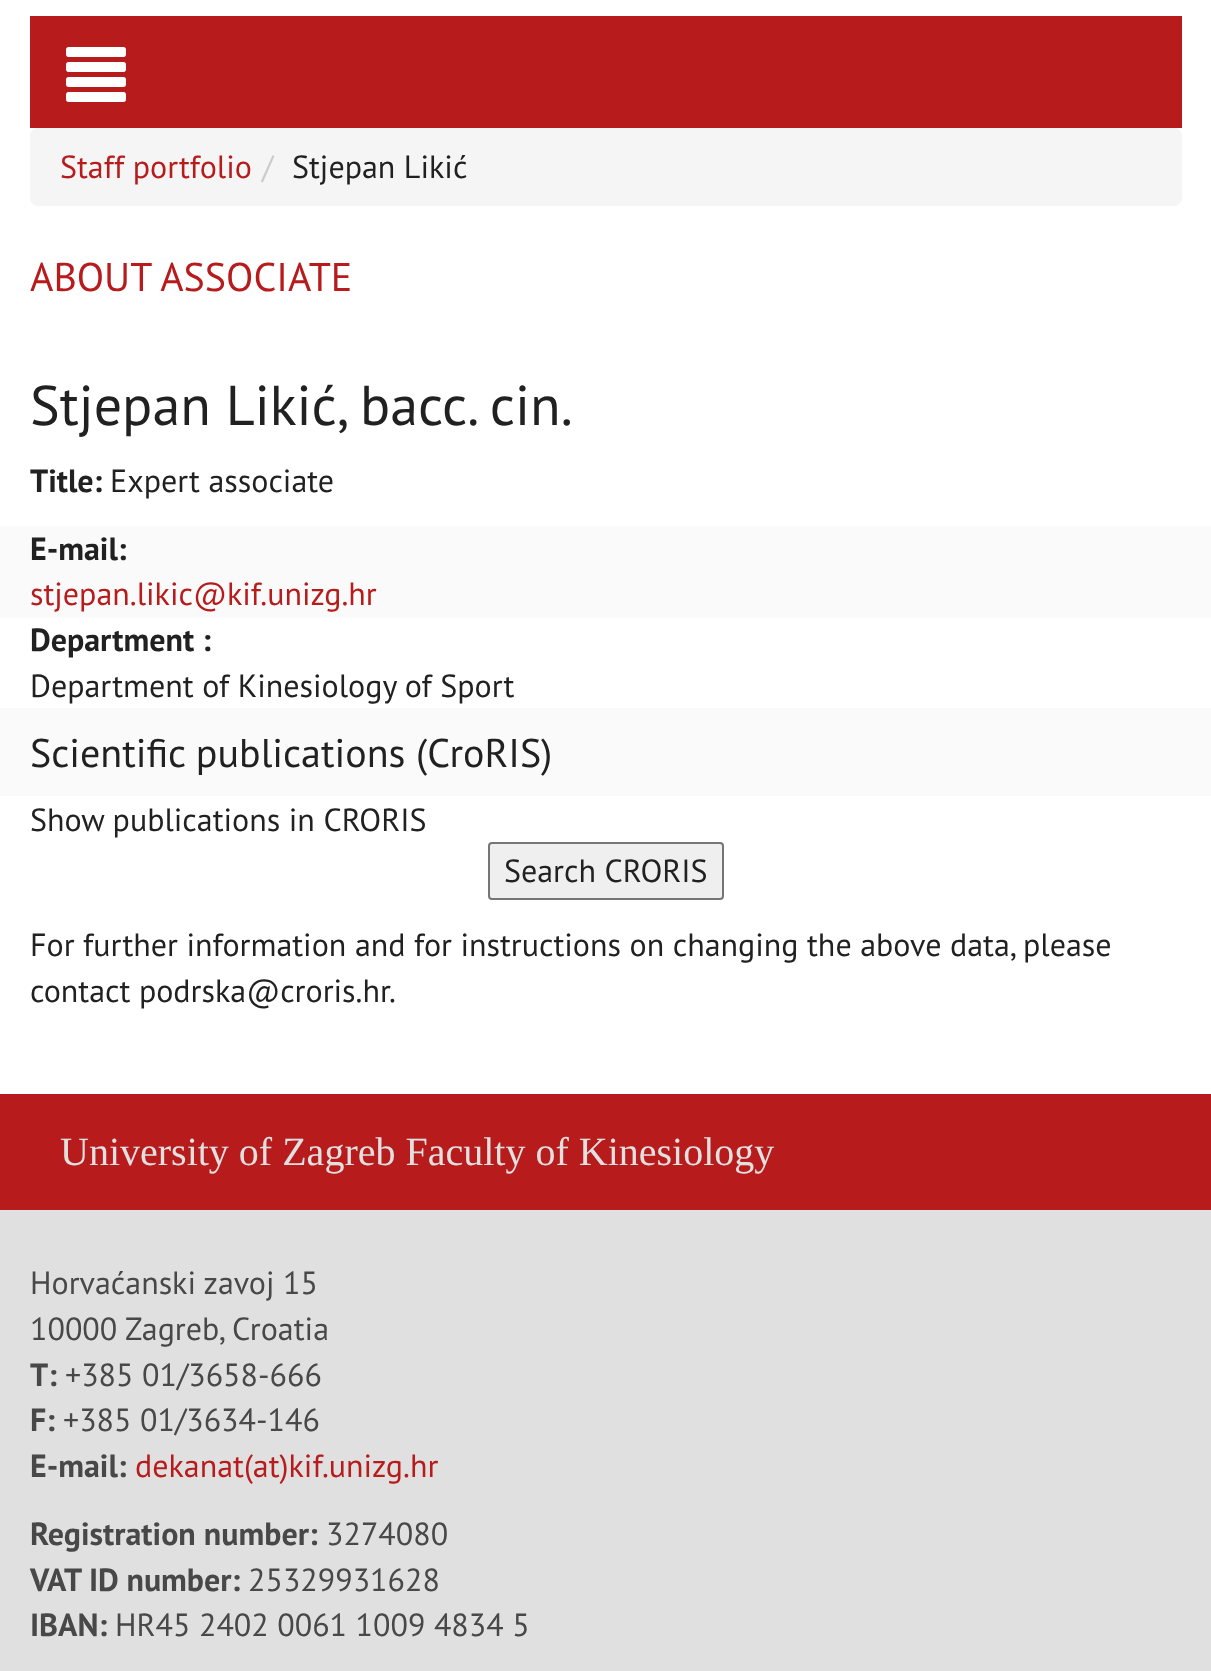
<svg xmlns="http://www.w3.org/2000/svg" width="1211" height="1671">
<rect width="100%" height="100%" fill="#fff"/>
<rect x="30" y="16" width="1152" height="112" fill="#b71b1c"/>
<image x="66" y="47" width="60" height="55" href="media/1.png"/>
<rect x="30" y="128" width="1152" height="78" rx="8" fill="#f5f5f5"/>
<text x="60" y="178" style="font-family:PT Sans;font-size:32px;fill:#b71b1c">Staff portfolio</text>
<text x="262" y="178" style="font-family:PT Sans;font-size:32px;fill:#ccc">/</text>
<text x="292" y="178" style="font-family:PT Sans;font-size:32px;fill:#212121">Stjepan Likić</text>
<text x="30" y="291" style="font-family:PT Sans;font-size:40px;fill:#b71b1c">ABOUT ASSOCIATE</text>
<text x="30" y="425" style="font-family:PT Sans;font-size:56px;fill:#212121">Stjepan Likić, bacc. cin.</text>
<text x="30" y="492" style="font-family:PT Sans;font-size:32px;font-weight:bold;fill:#212121">Title:</text>
<text x="110" y="492" style="font-family:PT Sans;font-size:32px;fill:#212121">Expert associate</text>
<rect y="526" width="1211" height="92" fill="#fafafa"/>
<text x="30" y="560" style="font-family:PT Sans;font-size:32px;font-weight:bold;fill:#212121">E-mail:</text>
<text x="30" y="605" style="font-family:PT Sans;font-size:32px;fill:#b71b1c">stjepan.likic@kif.unizg.hr</text>
<text x="30" y="651" style="font-family:PT Sans;font-size:32px;font-weight:bold;fill:#212121">Department :</text>
<text x="30" y="697" style="font-family:PT Sans;font-size:32px;fill:#212121">Department of Kinesiology of Sport</text>
<rect y="708" width="1211" height="88" fill="#fafafa"/>
<text x="30" y="767" style="font-family:PT Sans;font-size:40px;fill:#212121">Scientific publications (CroRIS)</text>
<text x="30" y="831" style="font-family:PT Sans;font-size:32px;fill:#212121">Show publications in CRORIS</text>
<rect x="489" y="843" width="234" height="56" rx="3" fill="#efefef" stroke="#767676" stroke-width="2"/>
<text x="504" y="882" style="font-family:PT Sans;font-size:32px;fill:#212121">Search CRORIS</text>
<text x="30" y="956" style="font-family:PT Sans;font-size:32px;fill:#212121">For further information and for instructions on changing the above data, please</text>
<text x="30" y="1002" style="font-family:PT Sans;font-size:32px;fill:#212121">contact podrska@croris.hr.</text>
<rect y="1210" width="1211" height="461" fill="#e0e0e0"/>
<rect y="1094" width="1211" height="116" fill="#b71b1c"/>
<text x="60" y="1165" style="font-family:Liberation Serif;font-size:40px;fill:#e0e0e0">University of Zagreb Faculty of Kinesiology</text>
<text x="30" y="1294" style="font-family:PT Sans;font-size:32px;fill:#484848">Horvaćanski zavoj 15</text>
<text x="30" y="1340" style="font-family:PT Sans;font-size:32px;fill:#484848">10000 Zagreb, Croatia</text>
<text x="30" y="1386" style="font-family:PT Sans;font-size:32px;font-weight:bold;fill:#484848">T:</text>
<text x="65" y="1386" style="font-family:PT Sans;font-size:32px;fill:#484848">+385 01/3658-666</text>
<text x="30" y="1431" style="font-family:PT Sans;font-size:32px;font-weight:bold;fill:#484848">F:</text>
<text x="63" y="1431" style="font-family:PT Sans;font-size:32px;fill:#484848">+385 01/3634-146</text>
<text x="30" y="1477" style="font-family:PT Sans;font-size:32px;font-weight:bold;fill:#484848">E-mail:</text>
<text x="135" y="1477" style="font-family:PT Sans;font-size:32px;fill:#b71b1c">dekanat(at)kif.unizg.hr</text>
<text x="30" y="1545" style="font-family:PT Sans;font-size:32px;font-weight:bold;fill:#484848">Registration number:</text>
<text x="326" y="1545" style="font-family:PT Sans;font-size:32px;fill:#484848">3274080</text>
<text x="30" y="1591" style="font-family:PT Sans;font-size:32px;font-weight:bold;fill:#484848">VAT ID number:</text>
<text x="248" y="1591" style="font-family:PT Sans;font-size:32px;fill:#484848">25329931628</text>
<text x="30" y="1636" style="font-family:PT Sans;font-size:32px;font-weight:bold;fill:#484848">IBAN:</text>
<text x="115" y="1636" style="font-family:PT Sans;font-size:32px;fill:#484848">HR45 2402 0061 1009 4834 5</text>
</svg>
